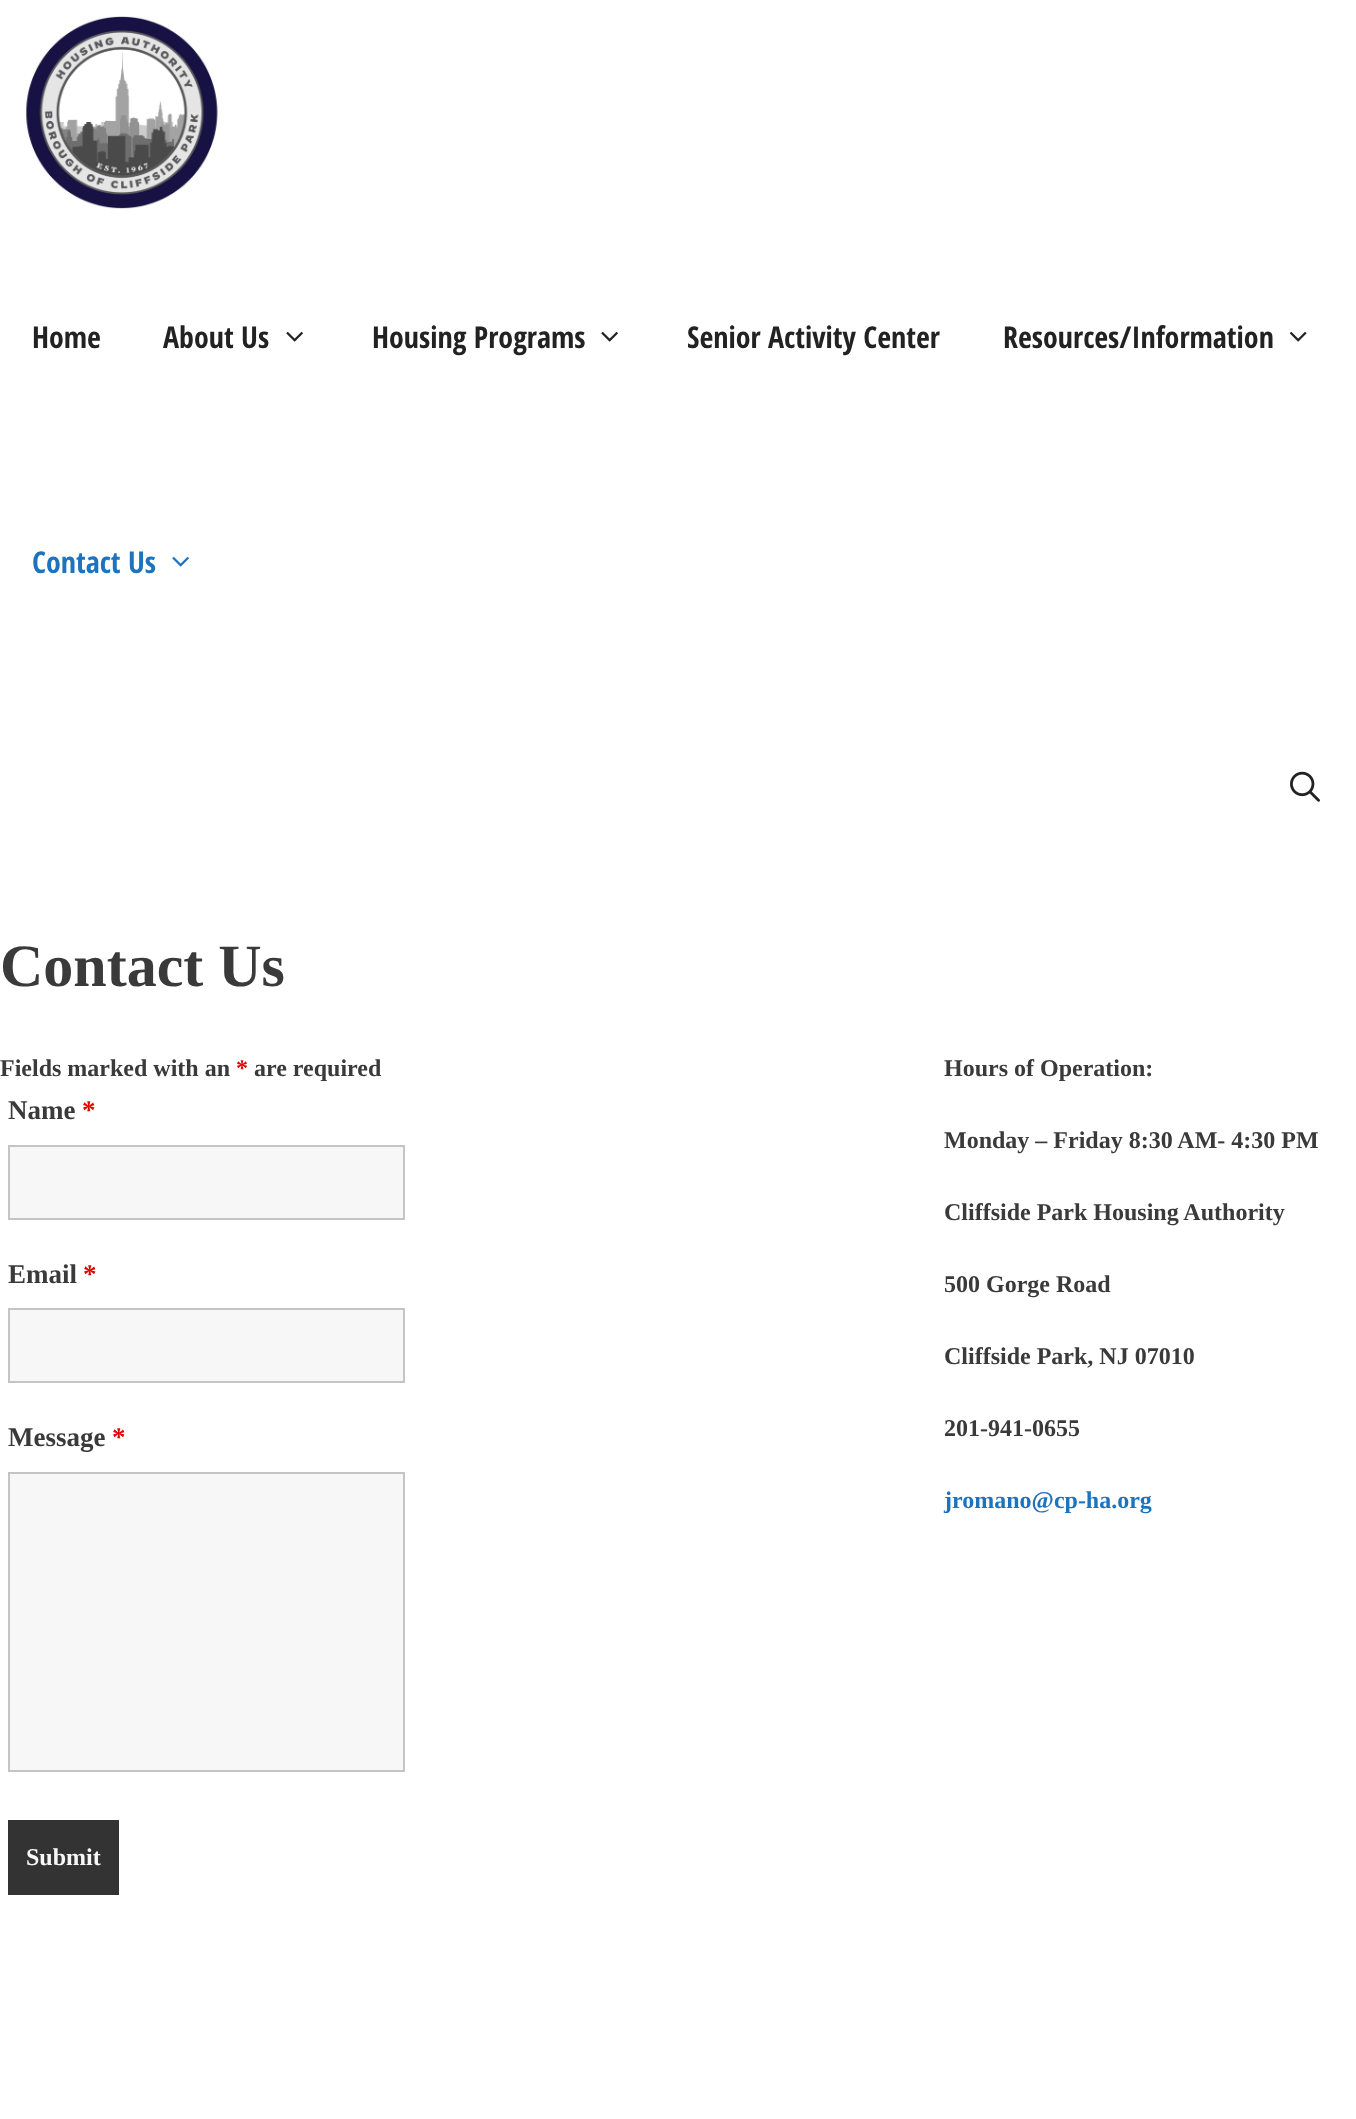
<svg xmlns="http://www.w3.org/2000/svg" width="1356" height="2119">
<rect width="100%" height="100%" fill="#fff"/>
<image x="25" y="16" width="193" height="193" href="media/1.png"/>
<text x="32" y="348" style="font-family:Open Sans Condensed;font-size:30px;font-weight:bold;fill:#222">Home</text>
<text x="163" y="348" style="font-family:Open Sans Condensed;font-size:30px;font-weight:bold;fill:#222">About Us</text>
<image x="286" y="331" width="17" height="11" href="media/2.png"/>
<text x="372" y="348" style="font-family:Open Sans Condensed;font-size:30px;font-weight:bold;fill:#222">Housing Programs</text>
<image x="601" y="331" width="17" height="11" href="media/2.png"/>
<text x="687" y="348" style="font-family:Open Sans Condensed;font-size:30px;font-weight:bold;fill:#222">Senior Activity Center</text>
<text x="1003" y="348" style="font-family:Open Sans Condensed;font-size:30px;font-weight:bold;fill:#222">Resources/Information</text>
<image x="1289" y="331" width="18" height="11" href="media/3.png"/>
<text x="32" y="573" style="font-family:Open Sans Condensed;font-size:30px;font-weight:bold;fill:#1e73be">Contact Us</text>
<image x="172" y="556" width="17" height="11" href="media/4.png"/>
<image x="1290" y="771" width="30" height="31" href="media/5.png"/>
<text x="0" y="986" style="font-family:Liberation Serif;font-size:60px;font-weight:bold;fill:#3a3a3a">Contact Us</text>
<text x="0" y="1076" style="font-family:Liberation Serif;font-size:24px;font-weight:bold;fill:#3a3a3a">Fields marked with an</text>
<text x="236" y="1076" style="font-family:Liberation Serif;font-size:24px;font-weight:bold;fill:#e80000">*</text>
<text x="254" y="1076" style="font-family:Liberation Serif;font-size:24px;font-weight:bold;fill:#3a3a3a">are required</text>
<text x="8" y="1119" style="font-family:Liberation Serif;font-size:27px;font-weight:bold;fill:#3a3a3a">Name</text>
<text x="82" y="1119" style="font-family:Liberation Serif;font-size:27px;font-weight:bold;fill:#e80000">*</text>
<rect x="9" y="1146" width="395" height="73" fill="#f7f7f7" stroke="#c4c4c4" stroke-width="2"/>
<text x="8" y="1283" style="font-family:Liberation Serif;font-size:27px;font-weight:bold;fill:#3a3a3a">Email</text>
<text x="83" y="1283" style="font-family:Liberation Serif;font-size:27px;font-weight:bold;fill:#e80000">*</text>
<rect x="9" y="1309" width="395" height="73" fill="#f7f7f7" stroke="#c4c4c4" stroke-width="2"/>
<text x="8" y="1446" style="font-family:Liberation Serif;font-size:27px;font-weight:bold;fill:#3a3a3a">Message</text>
<text x="112" y="1446" style="font-family:Liberation Serif;font-size:27px;font-weight:bold;fill:#e80000">*</text>
<rect x="9" y="1473" width="395" height="298" fill="#f7f7f7" stroke="#c4c4c4" stroke-width="2"/>
<rect x="8" y="1820" width="111" height="75" fill="#333"/>
<text x="26" y="1865" style="font-family:Liberation Serif;font-size:24px;font-weight:bold;fill:#f7f7f7">Submit</text>
<text x="944" y="1076" style="font-family:Liberation Serif;font-size:24px;font-weight:bold;fill:#3a3a3a">Hours of Operation:</text>
<text x="944" y="1148" style="font-family:Liberation Serif;font-size:24px;font-weight:bold;fill:#3a3a3a">Monday – Friday 8:30 AM- 4:30 PM</text>
<text x="944" y="1220" style="font-family:Liberation Serif;font-size:24px;font-weight:bold;fill:#3a3a3a">Cliffside Park Housing Authority</text>
<text x="944" y="1292" style="font-family:Liberation Serif;font-size:24px;font-weight:bold;fill:#3a3a3a">500 Gorge Road</text>
<text x="944" y="1364" style="font-family:Liberation Serif;font-size:24px;font-weight:bold;fill:#3a3a3a">Cliffside Park, NJ 07010</text>
<text x="944" y="1436" style="font-family:Liberation Serif;font-size:24px;font-weight:bold;fill:#3a3a3a">201-941-0655</text>
<text x="944" y="1508" style="font-family:Liberation Serif;font-size:24px;font-weight:bold;fill:#1e73be">jromano@cp-ha.org</text>
</svg>
